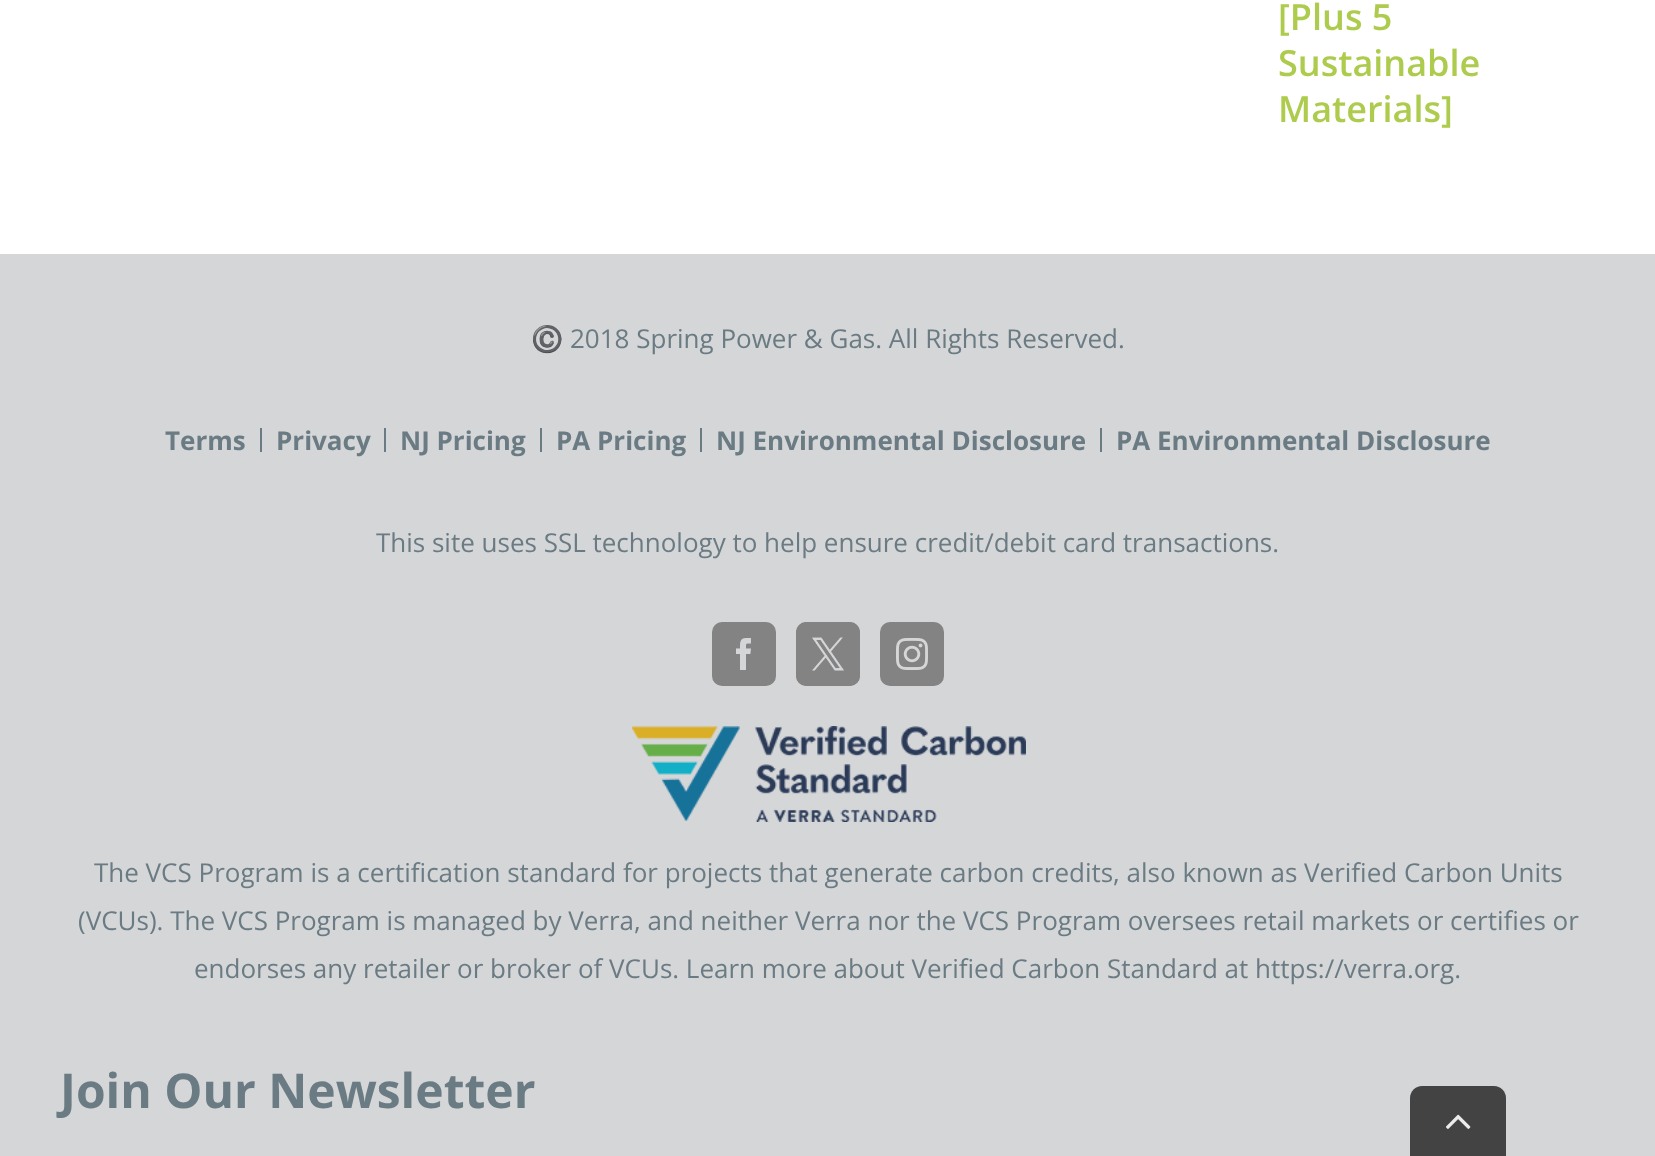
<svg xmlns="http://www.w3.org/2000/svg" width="1655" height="1156">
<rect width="100%" height="100%" fill="#fff"/>
<text x="1278" y="30" style="font-family:Open Sans;font-size:36px;font-weight:600;fill:#adcb4c">[Plus 5</text>
<text x="1278" y="76" style="font-family:Open Sans;font-size:36px;font-weight:600;fill:#adcb4c">Sustainable</text>
<text x="1278" y="122" style="font-family:Open Sans;font-size:36px;font-weight:600;fill:#adcb4c">Materials]</text>
<rect y="254" width="1655" height="902" fill="#d4d6d8"/>
<text x="531" y="348" style="font-family:Noto Color Emoji;font-size:26px;fill:#6b7b83">©️</text>
<text x="570" y="348" style="font-family:Open Sans;font-size:26px;fill:#6b7b83">2018 Spring Power &amp; Gas. All Rights Reserved.</text>
<text x="165" y="450" style="font-family:Open Sans;font-size:26px;font-weight:bold;fill:#6b7b83">Terms</text>
<rect x="260" y="428" width="2" height="24" fill="#6b7b83"/>
<text x="276" y="450" style="font-family:Open Sans;font-size:26px;font-weight:bold;fill:#6b7b83">Privacy</text>
<rect x="384" y="428" width="2" height="24" fill="#6b7b83"/>
<text x="400" y="450" style="font-family:Open Sans;font-size:26px;font-weight:bold;fill:#6b7b83">NJ Pricing</text>
<rect x="540" y="428" width="2" height="24" fill="#6b7b83"/>
<text x="556" y="450" style="font-family:Open Sans;font-size:26px;font-weight:bold;fill:#6b7b83">PA Pricing</text>
<rect x="700" y="428" width="2" height="24" fill="#6b7b83"/>
<text x="716" y="450" style="font-family:Open Sans;font-size:26px;font-weight:bold;fill:#6b7b83">NJ Environmental Disclosure</text>
<rect x="1100" y="428" width="2" height="24" fill="#6b7b83"/>
<text x="1116" y="450" style="font-family:Open Sans;font-size:26px;font-weight:bold;fill:#6b7b83">PA Environmental Disclosure</text>
<text x="376" y="552" style="font-family:Open Sans;font-size:26px;fill:#6b7b83">This site uses SSL technology to help ensure credit/debit card transactions.</text>
<rect x="712" y="622" width="64" height="64" rx="10" fill="#838383"/>
<image x="736" y="638" width="15" height="32" href="media/1.png"/>
<rect x="796" y="622" width="64" height="64" rx="10" fill="#838383"/>
<image x="796" y="622" width="64" height="64" href="media/2.png"/>
<rect x="880" y="622" width="64" height="64" rx="10" fill="#838383"/>
<image x="896" y="638" width="32" height="32" href="media/3.png"/>
<image x="632" y="726" width="394" height="96" href="media/4.png"/>
<text x="94" y="882" style="font-family:Open Sans;font-size:26px;fill:#6b7b83">The VCS Program is a certification standard for projects that generate carbon credits, also known as Verified Carbon Units</text>
<text x="78" y="930" style="font-family:Open Sans;font-size:26px;fill:#6b7b83">(VCUs). The VCS Program is managed by Verra, and neither Verra nor the VCS Program oversees retail markets or certifies or</text>
<text x="194" y="978" style="font-family:Open Sans;font-size:26px;fill:#6b7b83">endorses any retailer or broker of VCUs. Learn more about Verified Carbon Standard at https://verra.org.</text>
<text x="60" y="1108" style="font-family:Open Sans;font-size:48px;font-weight:bold;fill:#6b7b83">Join Our Newsletter</text>
<path d="M1422 1086h72c6.5 0 12 5.5 12 12v58h-96v-58c0-6.5 5.5-12 12-12z" fill="#434344"/>
<image x="1446" y="1114" width="25" height="15" href="media/5.png"/>
</svg>
